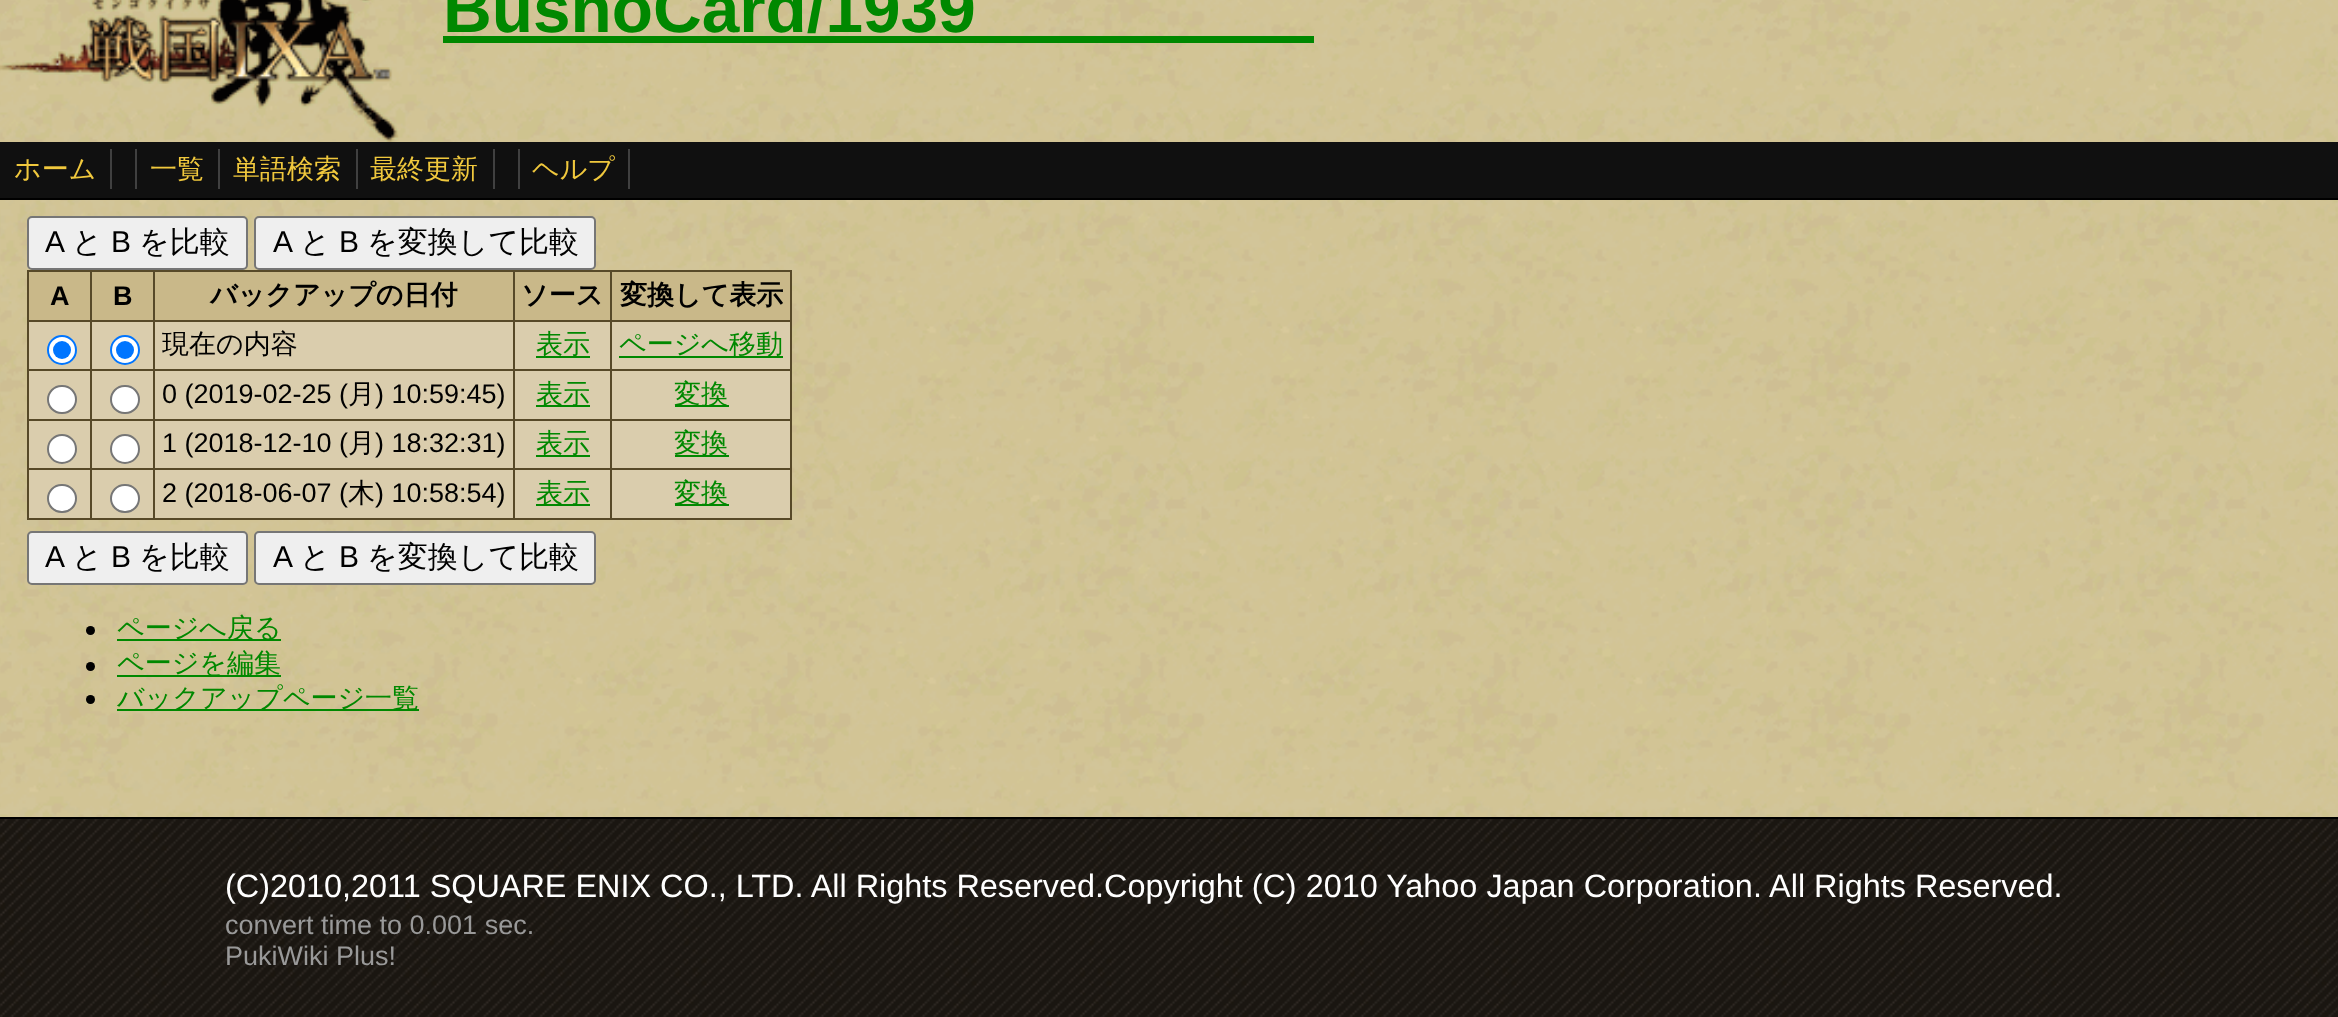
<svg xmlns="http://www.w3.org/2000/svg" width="2338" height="1017">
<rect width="100%" height="100%" fill="#fff"/>
<image x="0" y="0" width="2338" height="817" href="media/1.png"/>
<image x="0" y="0" width="399" height="142" href="media/2.png"/>
<text x="443" y="32" style="font-family:Liberation Sans;font-size:67.5px;font-weight:bold;fill:#080">BushoCard/1939</text>
<rect x="443" y="36" width="871" height="7" fill="#080"/>
<rect y="142" width="2338" height="56" fill="#101010"/>
<text x="14" y="178" style="font-family:WenQuanYi Zen Hei;font-size:27px;font-weight:500;fill:#f0c83d">ホーム</text>
<rect x="110" y="149" width="2" height="40" fill="#404040"/>
<rect x="135" y="149" width="2" height="40" fill="#404040"/>
<text x="150" y="178" style="font-family:WenQuanYi Zen Hei;font-size:27px;font-weight:500;fill:#f0c83d">一覧</text>
<rect x="218" y="149" width="2" height="40" fill="#404040"/>
<text x="233" y="178" style="font-family:WenQuanYi Zen Hei;font-size:27px;font-weight:500;fill:#f0c83d">単語検索</text>
<rect x="356" y="149" width="2" height="40" fill="#404040"/>
<text x="370" y="178" style="font-family:WenQuanYi Zen Hei;font-size:27px;font-weight:500;fill:#f0c83d">最終更新</text>
<rect x="493" y="149" width="2" height="40" fill="#404040"/>
<rect x="518" y="149" width="2" height="40" fill="#404040"/>
<text x="532" y="178" style="font-family:WenQuanYi Zen Hei;font-size:27px;font-weight:500;fill:#f0c83d">ヘルプ</text>
<rect x="628" y="149" width="2" height="40" fill="#404040"/>
<rect y="198" width="2338" height="2" fill="#000"/>
<rect y="817" width="2338" height="2" fill="#000"/>
<rect x="28" y="217" width="219" height="52" rx="4" fill="#efefef" stroke="#767676" stroke-width="2"/>
<text x="45" y="252" style="font-family:Liberation Sans;font-size:30px;fill:#000">A</text>
<text x="72" y="252" style="font-family:WenQuanYi Zen Hei;font-size:30px;font-weight:500;fill:#000">と</text>
<text x="111" y="252" style="font-family:Liberation Sans;font-size:30px;fill:#000">B</text>
<text x="139" y="252" style="font-family:WenQuanYi Zen Hei;font-size:30px;font-weight:500;fill:#000">を比較</text>
<rect x="255" y="217" width="340" height="52" rx="4" fill="#efefef" stroke="#767676" stroke-width="2"/>
<text x="273" y="252" style="font-family:Liberation Sans;font-size:30px;fill:#000">A</text>
<text x="300" y="252" style="font-family:WenQuanYi Zen Hei;font-size:30px;font-weight:500;fill:#000">と</text>
<text x="339" y="252" style="font-family:Liberation Sans;font-size:30px;fill:#000">B</text>
<text x="367" y="252" style="font-family:WenQuanYi Zen Hei;font-size:30px;font-weight:500;fill:#000">を変換して比較</text>
<rect x="27" y="270" width="765" height="250" fill="#574928"/>
<rect x="29" y="272" width="61" height="48" fill="#c9b889"/>
<text x="50" y="305" style="font-family:Liberation Sans;font-size:27px;font-weight:bold;fill:#000">A</text>
<rect x="92" y="272" width="61" height="48" fill="#c9b889"/>
<text x="113" y="305" style="font-family:Liberation Sans;font-size:27px;font-weight:bold;fill:#000">B</text>
<rect x="155" y="272" width="358" height="48" fill="#c9b889"/>
<text x="210" y="304" style="font-family:WenQuanYi Zen Hei;font-size:27px;font-weight:bold;fill:#000">バックアップの日付</text>
<rect x="515" y="272" width="95" height="48" fill="#c9b889"/>
<text x="521" y="304" style="font-family:WenQuanYi Zen Hei;font-size:27px;font-weight:bold;fill:#000">ソース</text>
<rect x="612" y="272" width="178" height="48" fill="#c9b889"/>
<text x="620" y="304" style="font-family:WenQuanYi Zen Hei;font-size:27px;font-weight:bold;fill:#000">変換して表示</text>
<rect x="29" y="322" width="61" height="47" fill="#dacdad"/>
<circle cx="62" cy="350" r="14" fill="#fff" stroke="#0075ff" stroke-width="2"/>
<circle cx="62" cy="350" r="9" fill="#0075ff"/>
<rect x="92" y="322" width="61" height="47" fill="#dacdad"/>
<circle cx="125" cy="350" r="14" fill="#fff" stroke="#0075ff" stroke-width="2"/>
<circle cx="125" cy="350" r="9" fill="#0075ff"/>
<rect x="155" y="322" width="358" height="47" fill="#dacdad"/>
<text x="162" y="353" style="font-family:WenQuanYi Zen Hei;font-size:27px;font-weight:500;fill:#000">現在の内容</text>
<rect x="515" y="322" width="95" height="47" fill="#dacdad"/>
<rect x="536" y="356" width="54" height="2" fill="#080"/>
<text x="536" y="353" style="font-family:WenQuanYi Zen Hei;font-size:27px;font-weight:500;fill:#080">表示</text>
<rect x="612" y="322" width="178" height="47" fill="#dacdad"/>
<rect x="619" y="356" width="164" height="2" fill="#080"/>
<text x="619" y="353" style="font-family:WenQuanYi Zen Hei;font-size:27px;font-weight:500;fill:#080">ページへ移動</text>
<rect x="29" y="371" width="61" height="48" fill="#dacdad"/>
<rect x="48" y="386" width="28" height="27" rx="13.5" fill="#fff" stroke="#767676" stroke-width="2"/>
<rect x="92" y="371" width="61" height="48" fill="#dacdad"/>
<rect x="111" y="386" width="28" height="27" rx="13.5" fill="#fff" stroke="#767676" stroke-width="2"/>
<rect x="155" y="371" width="358" height="48" fill="#dacdad"/>
<text x="162" y="403" style="font-family:Liberation Sans;font-size:27px;fill:#000">0 (2019-02-25 (</text>
<text x="348" y="403" style="font-family:WenQuanYi Zen Hei;font-size:27px;font-weight:500;fill:#000">月</text>
<text x="375" y="403" style="font-family:Liberation Sans;font-size:27px;fill:#000">) 10:59:45)</text>
<rect x="515" y="371" width="95" height="48" fill="#dacdad"/>
<rect x="536" y="405" width="54" height="2" fill="#080"/>
<text x="536" y="403" style="font-family:WenQuanYi Zen Hei;font-size:27px;font-weight:500;fill:#080">表示</text>
<rect x="612" y="371" width="178" height="48" fill="#dacdad"/>
<rect x="675" y="405" width="54" height="2" fill="#080"/>
<text x="674" y="403" style="font-family:WenQuanYi Zen Hei;font-size:27px;font-weight:500;fill:#080">変換</text>
<rect x="29" y="421" width="61" height="47" fill="#dacdad"/>
<circle cx="62" cy="449" r="14" fill="#fff" stroke="#767676" stroke-width="2"/>
<rect x="92" y="421" width="61" height="47" fill="#dacdad"/>
<circle cx="125" cy="449" r="14" fill="#fff" stroke="#767676" stroke-width="2"/>
<rect x="155" y="421" width="358" height="47" fill="#dacdad"/>
<text x="162" y="452" style="font-family:Liberation Sans;font-size:27px;fill:#000">1 (2018-12-10 (</text>
<text x="348" y="452" style="font-family:WenQuanYi Zen Hei;font-size:27px;font-weight:500;fill:#000">月</text>
<text x="375" y="452" style="font-family:Liberation Sans;font-size:27px;fill:#000">) 18:32:31)</text>
<rect x="515" y="421" width="95" height="47" fill="#dacdad"/>
<rect x="536" y="455" width="54" height="2" fill="#080"/>
<text x="536" y="452" style="font-family:WenQuanYi Zen Hei;font-size:27px;font-weight:500;fill:#080">表示</text>
<rect x="612" y="421" width="178" height="47" fill="#dacdad"/>
<rect x="675" y="455" width="54" height="2" fill="#080"/>
<text x="674" y="452" style="font-family:WenQuanYi Zen Hei;font-size:27px;font-weight:500;fill:#080">変換</text>
<rect x="29" y="470" width="61" height="48" fill="#dacdad"/>
<rect x="48" y="485" width="28" height="27" rx="13.5" fill="#fff" stroke="#767676" stroke-width="2"/>
<rect x="92" y="470" width="61" height="48" fill="#dacdad"/>
<rect x="111" y="485" width="28" height="27" rx="13.5" fill="#fff" stroke="#767676" stroke-width="2"/>
<rect x="155" y="470" width="358" height="48" fill="#dacdad"/>
<text x="162" y="502" style="font-family:Liberation Sans;font-size:27px;fill:#000">2 (2018-06-07 (</text>
<text x="348" y="502" style="font-family:WenQuanYi Zen Hei;font-size:27px;font-weight:500;fill:#000">木</text>
<text x="375" y="502" style="font-family:Liberation Sans;font-size:27px;fill:#000">) 10:58:54)</text>
<rect x="515" y="470" width="95" height="48" fill="#dacdad"/>
<rect x="536" y="504" width="54" height="2" fill="#080"/>
<text x="536" y="502" style="font-family:WenQuanYi Zen Hei;font-size:27px;font-weight:500;fill:#080">表示</text>
<rect x="612" y="470" width="178" height="48" fill="#dacdad"/>
<rect x="675" y="504" width="54" height="2" fill="#080"/>
<text x="674" y="502" style="font-family:WenQuanYi Zen Hei;font-size:27px;font-weight:500;fill:#080">変換</text>
<rect x="28" y="532" width="219" height="52" rx="4" fill="#efefef" stroke="#767676" stroke-width="2"/>
<text x="45" y="567" style="font-family:Liberation Sans;font-size:30px;fill:#000">A</text>
<text x="72" y="567" style="font-family:WenQuanYi Zen Hei;font-size:30px;font-weight:500;fill:#000">と</text>
<text x="111" y="567" style="font-family:Liberation Sans;font-size:30px;fill:#000">B</text>
<text x="139" y="567" style="font-family:WenQuanYi Zen Hei;font-size:30px;font-weight:500;fill:#000">を比較</text>
<rect x="255" y="532" width="340" height="52" rx="4" fill="#efefef" stroke="#767676" stroke-width="2"/>
<text x="273" y="567" style="font-family:Liberation Sans;font-size:30px;fill:#000">A</text>
<text x="300" y="567" style="font-family:WenQuanYi Zen Hei;font-size:30px;font-weight:500;fill:#000">と</text>
<text x="339" y="567" style="font-family:Liberation Sans;font-size:30px;fill:#000">B</text>
<text x="367" y="567" style="font-family:WenQuanYi Zen Hei;font-size:30px;font-weight:500;fill:#000">を変換して比較</text>
<circle cx="90.5" cy="630.5" r="4.5" fill="#000"/>
<rect x="117" y="639" width="164" height="2" fill="#080"/>
<text x="117" y="637" style="font-family:WenQuanYi Zen Hei;font-size:27px;font-weight:500;fill:#080">ページへ戻る</text>
<circle cx="90.5" cy="666.5" r="4.5" fill="#000"/>
<rect x="117" y="675" width="164" height="2" fill="#080"/>
<text x="117" y="672" style="font-family:WenQuanYi Zen Hei;font-size:27px;font-weight:500;fill:#080">ページを編集</text>
<circle cx="90.5" cy="699.5" r="4.5" fill="#000"/>
<rect x="117" y="709" width="302" height="2" fill="#080"/>
<text x="117" y="707" style="font-family:WenQuanYi Zen Hei;font-size:27px;font-weight:500;fill:#080">バックアップページ一覧</text>
<image x="0" y="819" width="2338" height="198" href="media/3.png"/>
<text x="225" y="897" style="font-family:Liberation Sans;font-size:32.4px;fill:#fff">(C)2010,2011 SQUARE ENIX CO., LTD. All Rights Reserved.Copyright (C) 2010 Yahoo Japan Corporation. All Rights Reserved.</text>
<text x="225" y="934" style="font-family:Liberation Sans;font-size:27px;fill:#999">convert time to 0.001 sec.</text>
<text x="225" y="965" style="font-family:Liberation Sans;font-size:27px;fill:#999">PukiWiki Plus!</text>
</svg>
